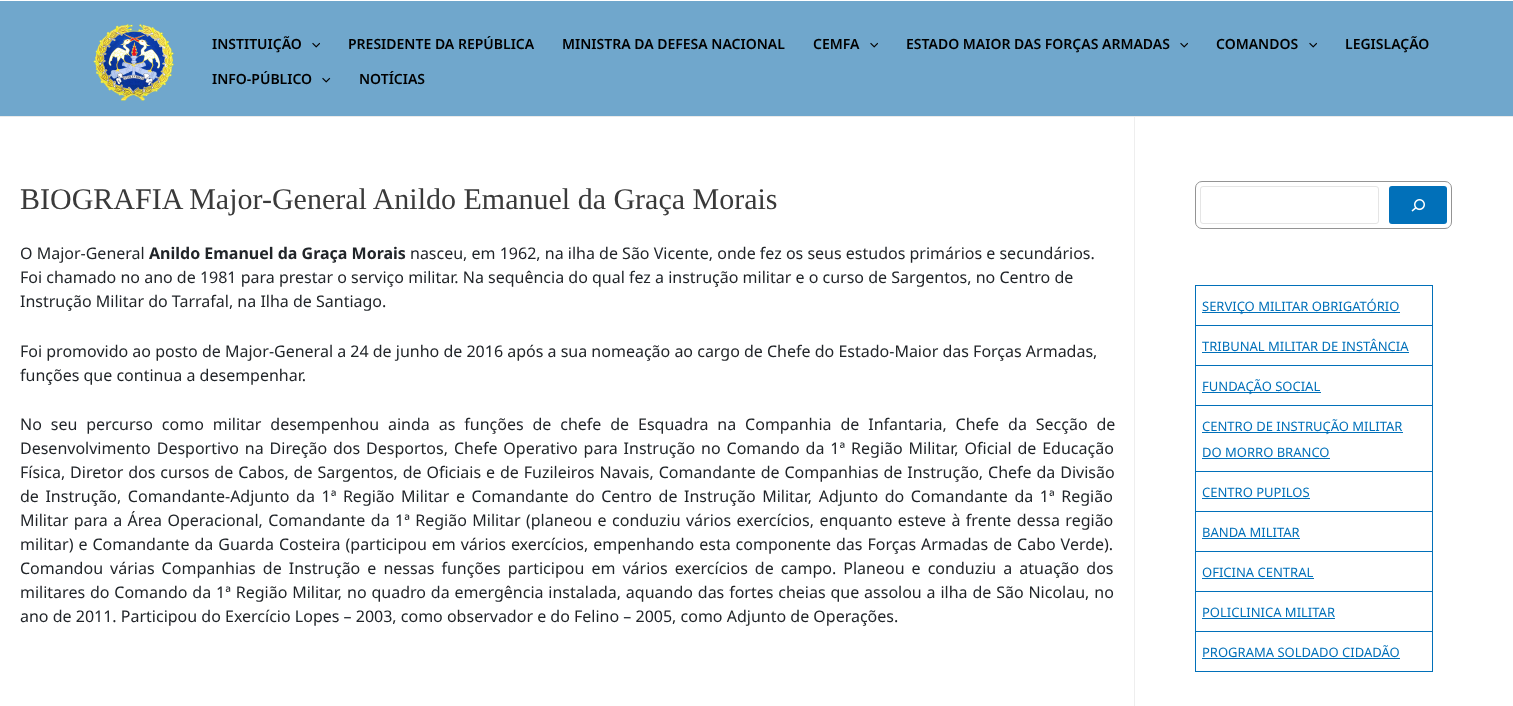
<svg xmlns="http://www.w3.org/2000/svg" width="1513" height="706">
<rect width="100%" height="100%" fill="#fff"/>
<rect y="1" width="1513" height="115" fill="#70a7cc"/>
<rect y="116" width="1513" height="1" fill="#eaeaea"/>
<image x="93" y="24" width="81" height="77" href="media/1.png"/>
<text x="212" y="49" style="font-family:Noto Sans;font-size:14px;font-weight:600;fill:#000">INSTITUIÇÃO</text>
<image x="312" y="42" width="8" height="6" href="media/2.png"/>
<text x="348" y="49" style="font-family:Noto Sans;font-size:14px;font-weight:600;fill:#000">PRESIDENTE DA REPÚBLICA</text>
<text x="562" y="49" style="font-family:Noto Sans;font-size:14px;font-weight:600;fill:#000">MINISTRA DA DEFESA NACIONAL</text>
<text x="813" y="49" style="font-family:Noto Sans;font-size:14px;font-weight:600;fill:#000">CEMFA</text>
<image x="870" y="42" width="8" height="6" href="media/2.png"/>
<text x="906" y="49" style="font-family:Noto Sans;font-size:14px;font-weight:600;fill:#000">ESTADO MAIOR DAS FORÇAS ARMADAS</text>
<image x="1180" y="42" width="8" height="6" href="media/2.png"/>
<text x="1216" y="49" style="font-family:Noto Sans;font-size:14px;font-weight:600;fill:#000">COMANDOS</text>
<image x="1309" y="42" width="8" height="6" href="media/2.png"/>
<text x="1345" y="49" style="font-family:Noto Sans;font-size:14px;font-weight:600;fill:#000">LEGISLAÇÃO</text>
<text x="212" y="84" style="font-family:Noto Sans;font-size:14px;font-weight:600;fill:#000">INFO-PÚBLICO</text>
<image x="322" y="77" width="9" height="6" href="media/3.png"/>
<text x="359" y="84" style="font-family:Noto Sans;font-size:14px;font-weight:600;fill:#000">NOTÍCIAS</text>
<rect x="1134" y="117" width="1" height="589" fill="#eee"/>
<text x="20" y="209" style="font-family:Liberation Serif;font-size:30px;fill:#3a3a3a">BIOGRAFIA Major-General Anildo Emanuel da Graça Morais</text>
<text x="20" y="259" style="font-family:Noto Sans;font-size:16px;fill:#212529">O Major-General</text>
<text x="149" y="259" style="font-family:Noto Sans;font-size:16px;font-weight:bold;fill:#212529">Anildo Emanuel da Graça Morais</text>
<text x="410" y="259" style="font-family:Noto Sans;font-size:16px;fill:#212529">nasceu, em 1962, na ilha de São Vicente, onde fez os seus estudos primários e secundários.</text>
<text x="20" y="283" style="font-family:Noto Sans;font-size:16px;fill:#212529">Foi chamado no ano de 1981 para prestar o serviço militar. Na sequência do qual fez a instrução militar e o curso de Sargentos, no Centro de</text>
<text x="20" y="307" style="font-family:Noto Sans;font-size:16px;fill:#212529">Instrução Militar do Tarrafal, na Ilha de Santiago.</text>
<text x="20" y="357" style="font-family:Noto Sans;font-size:16px;fill:#212529">Foi promovido ao posto de Major-General a 24 de junho de 2016 após a sua nomeação ao cargo de Chefe do Estado-Maior das Forças Armadas,</text>
<text x="20" y="381" style="font-family:Noto Sans;font-size:16px;fill:#212529">funções que continua a desempenhar.</text>
<text x="20" y="430" word-spacing="4.75" style="font-family:Noto Sans;font-size:16px;fill:#212529">No seu percurso como militar desempenhou ainda as funções de chefe de Esquadra na Companhia de Infantaria, Chefe da Secção de</text>
<text x="20" y="454" word-spacing="1.75" style="font-family:Noto Sans;font-size:16px;fill:#212529">Desenvolvimento Desportivo na Direção dos Desportos, Chefe Operativo para Instrução no Comando da 1ª Região Militar, Oficial de Educação</text>
<text x="20" y="478" word-spacing="0.75" style="font-family:Noto Sans;font-size:16px;fill:#212529">Física, Diretor dos cursos de Cabos, de Sargentos, de Oficiais e de Fuzileiros Navais, Comandante de Companhias de Instrução, Chefe da Divisão</text>
<text x="20" y="502" word-spacing="2.4" style="font-family:Noto Sans;font-size:16px;fill:#212529">de Instrução, Comandante-Adjunto da 1ª Região Militar e Comandante do Centro de Instrução Militar, Adjunto do Comandante da 1ª Região</text>
<text x="20" y="526" word-spacing="1.25" style="font-family:Noto Sans;font-size:16px;fill:#212529">Militar para a Área Operacional, Comandante da 1ª Região Militar (planeou e conduziu vários exercícios, enquanto esteve à frente dessa região</text>
<text x="20" y="550" word-spacing="0.8" style="font-family:Noto Sans;font-size:16px;fill:#212529">militar) e Comandante da Guarda Costeira (participou em vários exercícios, empenhando esta componente das Forças Armadas de Cabo Verde).</text>
<text x="20" y="574" word-spacing="2.9" style="font-family:Noto Sans;font-size:16px;fill:#212529">Comandou várias Companhias de Instrução e nessas funções participou em vários exercícios de campo. Planeou e conduziu a atuação dos</text>
<text x="20" y="598" word-spacing="0.7" style="font-family:Noto Sans;font-size:16px;fill:#212529">militares do Comando da 1ª Região Militar, no quadro da emergência instalada, aquando das fortes cheias que assolou a ilha de São Nicolau, no</text>
<text x="20" y="622" style="font-family:Noto Sans;font-size:16px;fill:#212529">ano de 2011. Participou do Exercício Lopes – 2003, como observador e do Felino – 2005, como Adjunto de Operações.</text>
<rect x="1195.5" y="181.5" width="256" height="47" rx="6.5" fill="none" stroke="#949494"/>
<rect x="1200.5" y="186.5" width="178" height="37" rx="2.5" fill="none" stroke="#e5e5e5"/>
<rect x="1389" y="186" width="58" height="38" rx="3" fill="#0170b9"/>
<image x="1411" y="199" width="14" height="13" href="media/4.png"/>
<rect x="1195" y="285" width="238" height="1" fill="#0170b9"/>
<rect x="1195" y="325" width="238" height="1" fill="#0170b9"/>
<rect x="1195" y="365" width="238" height="1" fill="#0170b9"/>
<rect x="1195" y="405" width="238" height="1" fill="#0170b9"/>
<rect x="1195" y="471" width="238" height="1" fill="#0170b9"/>
<rect x="1195" y="511" width="238" height="1" fill="#0170b9"/>
<rect x="1195" y="551" width="238" height="1" fill="#0170b9"/>
<rect x="1195" y="591" width="238" height="1" fill="#0170b9"/>
<rect x="1195" y="631" width="238" height="1" fill="#0170b9"/>
<rect x="1432" y="631" width="1" height="41" fill="#0170b9"/>
<rect x="1432" y="591" width="1" height="41" fill="#0170b9"/>
<rect x="1432" y="551" width="1" height="41" fill="#0170b9"/>
<rect x="1432" y="511" width="1" height="41" fill="#0170b9"/>
<rect x="1432" y="471" width="1" height="41" fill="#0170b9"/>
<rect x="1432" y="405" width="1" height="67" fill="#0170b9"/>
<rect x="1432" y="365" width="1" height="41" fill="#0170b9"/>
<rect x="1432" y="325" width="1" height="41" fill="#0170b9"/>
<rect x="1432" y="285" width="1" height="41" fill="#0170b9"/>
<rect x="1195" y="671" width="238" height="1" fill="#0170b9"/>
<rect x="1195" y="631" width="1" height="41" fill="#0170b9"/>
<rect x="1195" y="591" width="1" height="41" fill="#0170b9"/>
<rect x="1195" y="551" width="1" height="41" fill="#0170b9"/>
<rect x="1195" y="511" width="1" height="41" fill="#0170b9"/>
<rect x="1195" y="471" width="1" height="41" fill="#0170b9"/>
<rect x="1195" y="405" width="1" height="67" fill="#0170b9"/>
<rect x="1195" y="365" width="1" height="41" fill="#0170b9"/>
<rect x="1195" y="325" width="1" height="41" fill="#0170b9"/>
<rect x="1195" y="285" width="1" height="41" fill="#0170b9"/>
<rect x="1202" y="312" width="198" height="1" fill="#0170b9"/>
<text x="1202" y="311" style="font-family:Noto Sans;font-size:13px;fill:#0170b9">SERVIÇO MILITAR OBRIGATÓRIO</text>
<text x="1202" y="351" style="font-family:Noto Sans;font-size:13px;fill:#0170b9">TRIBUNAL MILITAR DE INSTÂNCIA</text>
<rect x="1202" y="352" width="207" height="1" fill="#0170b9"/>
<rect x="1202" y="392" width="119" height="1" fill="#0170b9"/>
<text x="1202" y="391" style="font-family:Noto Sans;font-size:13px;fill:#0170b9">FUNDAÇÃO SOCIAL</text>
<rect x="1202" y="432" width="201" height="1" fill="#0170b9"/>
<text x="1202" y="431" style="font-family:Noto Sans;font-size:13px;fill:#0170b9">CENTRO DE INSTRUÇÃO MILITAR</text>
<text x="1202" y="457" style="font-family:Noto Sans;font-size:13px;fill:#0170b9">DO MORRO BRANCO</text>
<rect x="1202" y="458" width="128" height="1" fill="#0170b9"/>
<text x="1202" y="497" style="font-family:Noto Sans;font-size:13px;fill:#0170b9">CENTRO PUPILOS</text>
<rect x="1202" y="498" width="108" height="1" fill="#0170b9"/>
<text x="1202" y="537" style="font-family:Noto Sans;font-size:13px;fill:#0170b9">BANDA MILITAR</text>
<rect x="1202" y="538" width="98" height="1" fill="#0170b9"/>
<text x="1202" y="577" style="font-family:Noto Sans;font-size:13px;fill:#0170b9">OFICINA CENTRAL</text>
<rect x="1202" y="578" width="112" height="1" fill="#0170b9"/>
<text x="1202" y="617" style="font-family:Noto Sans;font-size:13px;fill:#0170b9">POLICLINICA MILITAR</text>
<rect x="1202" y="618" width="133" height="1" fill="#0170b9"/>
<text x="1202" y="657" style="font-family:Noto Sans;font-size:13px;fill:#0170b9">PROGRAMA SOLDADO CIDADÃO</text>
<rect x="1202" y="658" width="198" height="1" fill="#0170b9"/>
</svg>
